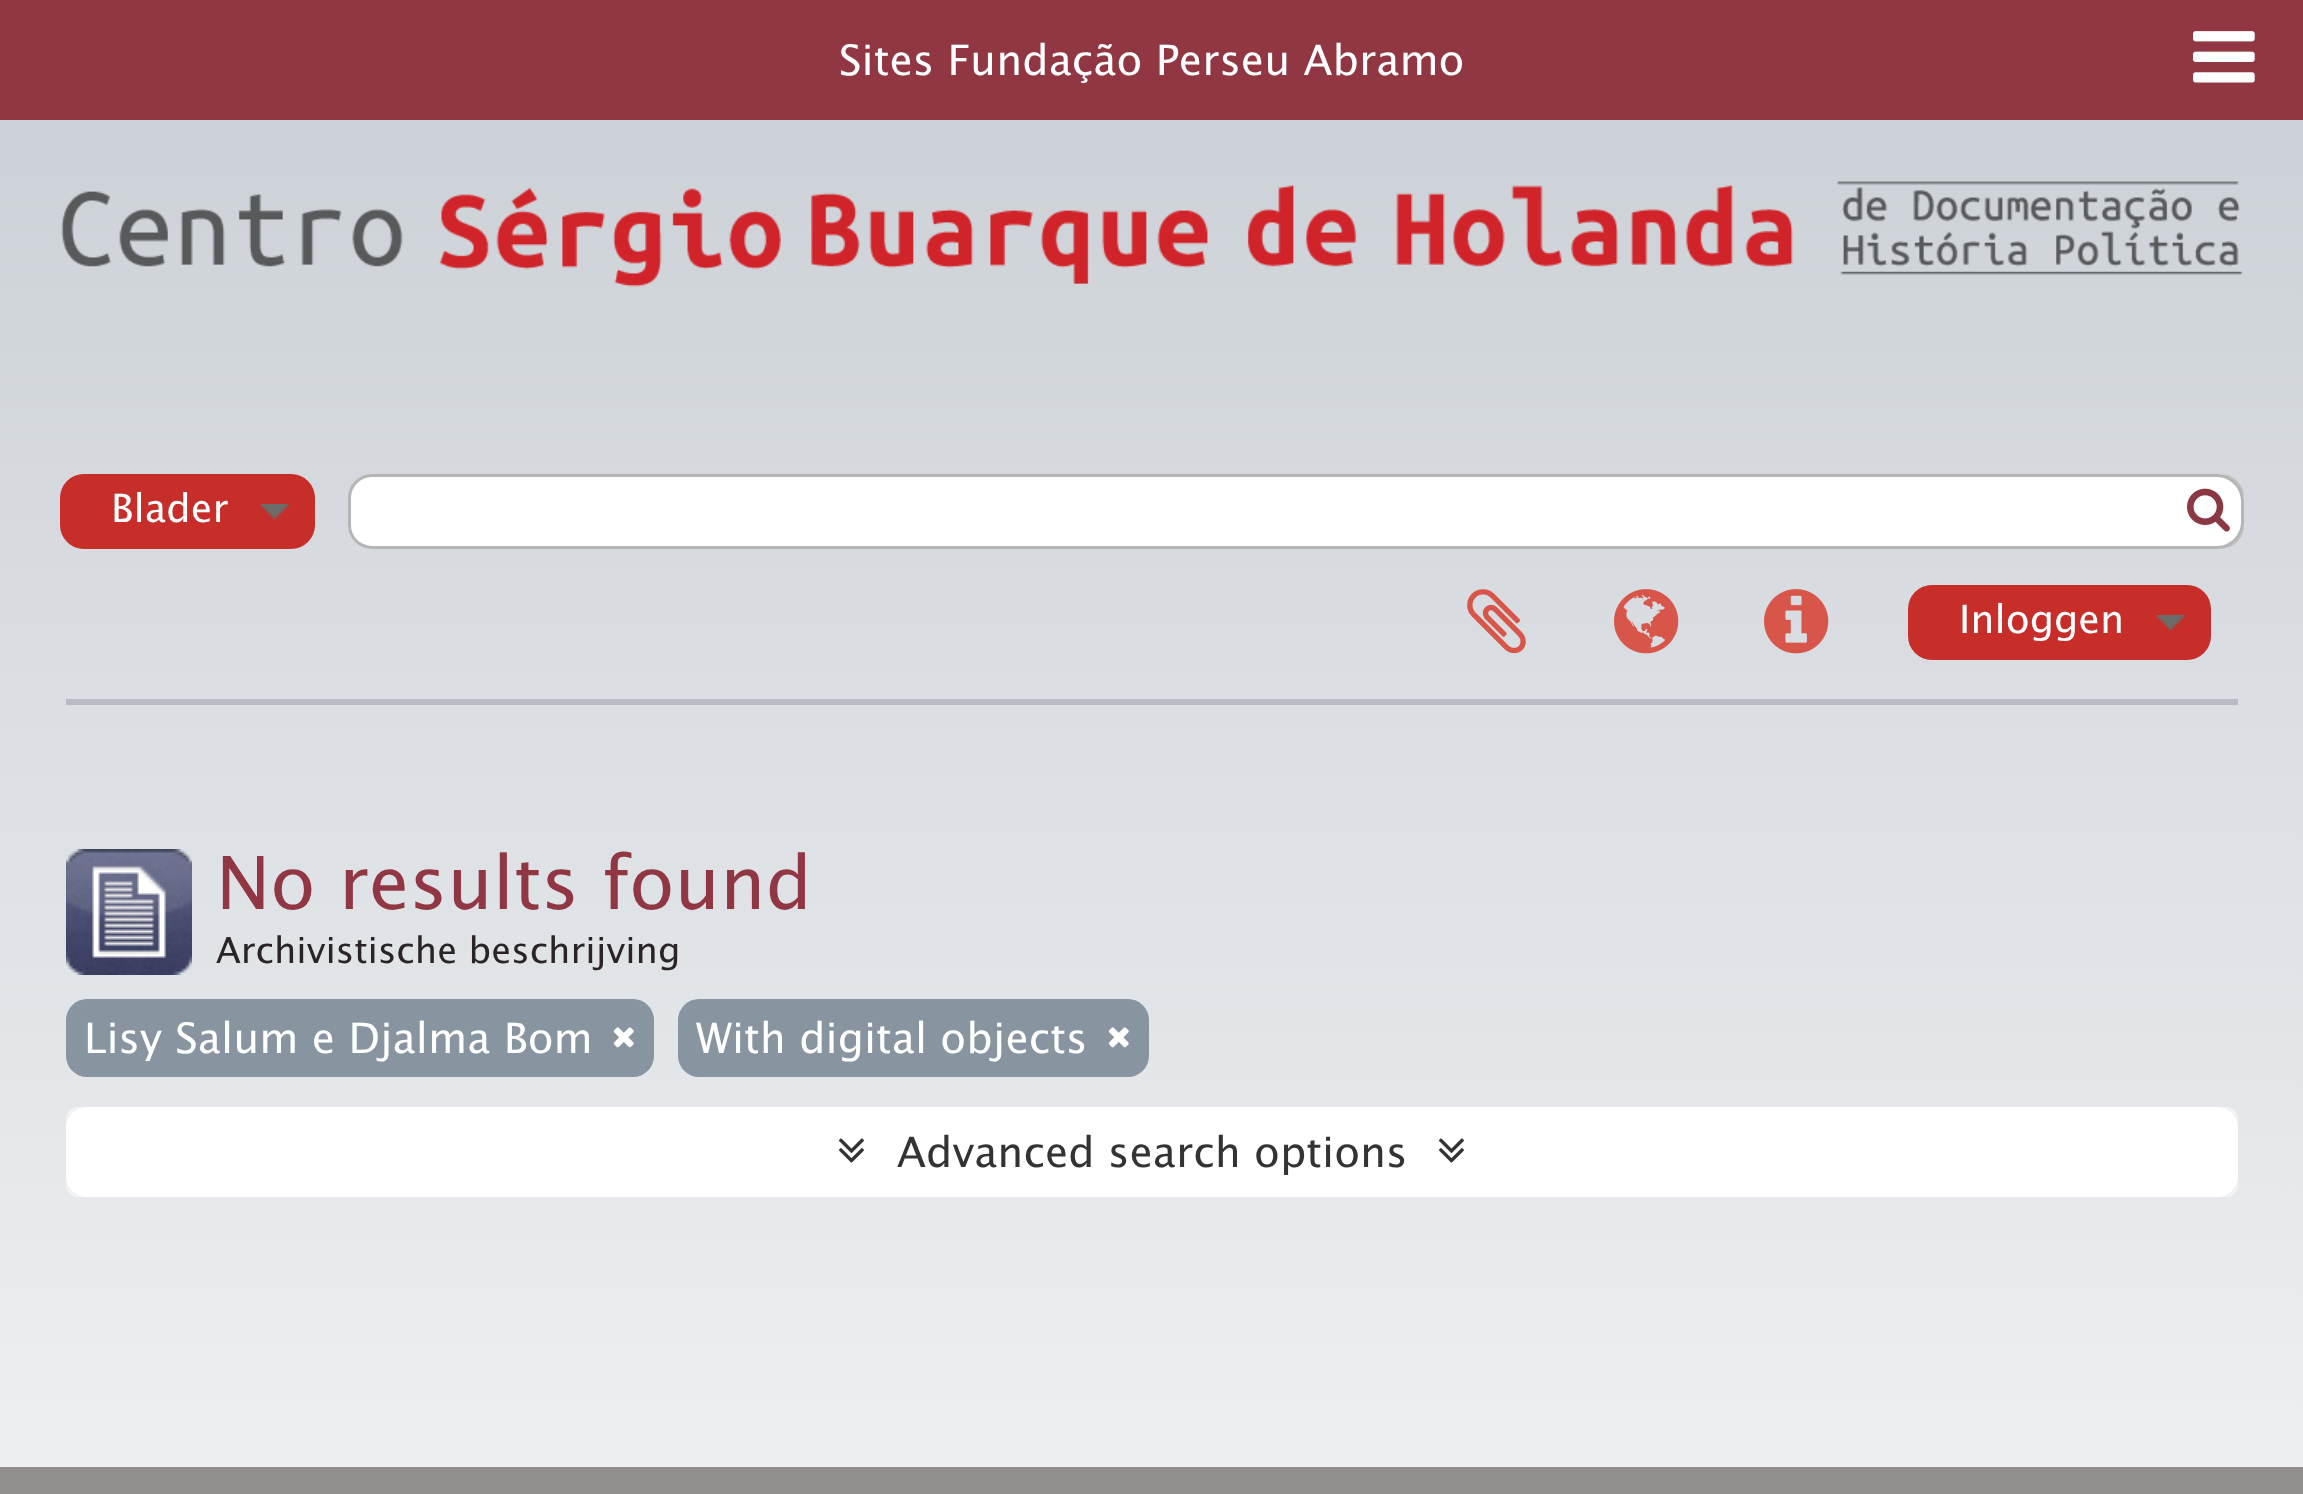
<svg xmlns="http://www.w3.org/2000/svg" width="2303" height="1494">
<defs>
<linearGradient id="g1" gradientUnits="userSpaceOnUse" x1="1152" y1="0" x2="1152" y2="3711"><stop offset="0" stop-color="#cacfd5"/><stop offset="0.6" stop-color="#fff"/></linearGradient>
</defs>
<rect width="100%" height="100%" fill="#fff"/>
<rect y="120" width="2303" height="1347" fill="url(#g1)"/>
<rect width="2303" height="120" fill="#903743"/>
<text x="839" y="75" style="font-family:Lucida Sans;font-size:42px;fill:#fff">Sites Fundação Perseu Abramo</text>
<image x="2193" y="31" width="62" height="52" href="media/1.png"/>
<image x="61" y="181" width="2182" height="106" href="media/2.png"/>
<rect x="60" y="474" width="255" height="75" rx="24" fill="#c72d29"/>
<image x="261" y="504" width="28" height="15" href="media/3.png"/>
<text x="111" y="522" style="font-family:Lucida Sans;font-size:39px;fill:#fff">Blader</text>
<rect x="349.5" y="475.5" width="1893" height="72" rx="22.5" fill="#fff" stroke="#b5b5b5" stroke-width="3"/>
<path d="M2169 474h48c15 0 27 12 27 27v21c0 15-12 27-27 27h-48z" fill="#fff"/>
<path d="M2169 474h48c15 0 27 12 27 27v21c0 15-12 27-27 27h-48zm0 3h48c13 0 24 11 24 24v21c0 13-11 24-24 24h-48z" fill="#b5b5b5" fill-rule="evenodd"/>
<image x="2187" y="488" width="43" height="44" href="media/4.png"/>
<image x="1467" y="589" width="59" height="65" href="media/5.png"/>
<image x="1614" y="589" width="65" height="65" href="media/6.png"/>
<image x="1764" y="589" width="65" height="65" href="media/7.png"/>
<rect x="1908" y="585" width="303" height="75" rx="24" fill="#c72d29"/>
<image x="2157" y="615" width="28" height="15" href="media/8.png"/>
<text x="1959" y="633" style="font-family:Lucida Sans;font-size:39px;fill:#fff">Inloggen</text>
<rect x="66" y="699" width="2172" height="6" fill="#b9bbc3"/>
<image x="66" y="849" width="126" height="126" href="media/9.png"/>
<text x="216" y="909" style="font-family:Lucida Sans;font-size:73.5px;fill:#903743">No results found</text>
<text x="216" y="963" style="font-family:Lucida Sans;font-size:36px;fill:#2a2426">Archivistische beschrijving</text>
<rect x="66" y="999" width="588" height="78" rx="21" fill="#8895a0"/>
<text x="84" y="1053" style="font-family:Lucida Sans;font-size:42px;fill:#fff">Lisy Salum e Djalma Bom</text>
<image x="613" y="1027" width="21" height="21" href="media/10.png"/>
<rect x="678" y="999" width="471" height="78" rx="21" fill="#8895a0"/>
<text x="696" y="1053" style="font-family:Lucida Sans;font-size:42px;fill:#fff">With digital objects</text>
<image x="1108" y="1027" width="21" height="21" href="media/10.png"/>
<rect x="66" y="1107" width="2172" height="90" rx="12" fill="#f2f3f5"/>
<rect x="66" y="1107" width="2172" height="90" rx="21" fill="#fff"/>
<image x="839" y="1138" width="25" height="25" href="media/11.png"/>
<text x="897" y="1167" style="font-family:Lucida Sans;font-size:42px;fill:#333">Advanced search options</text>
<image x="1439" y="1138" width="25" height="25" href="media/11.png"/>
<rect y="1467" width="2303" height="27" fill="#948f8f"/>
</svg>
